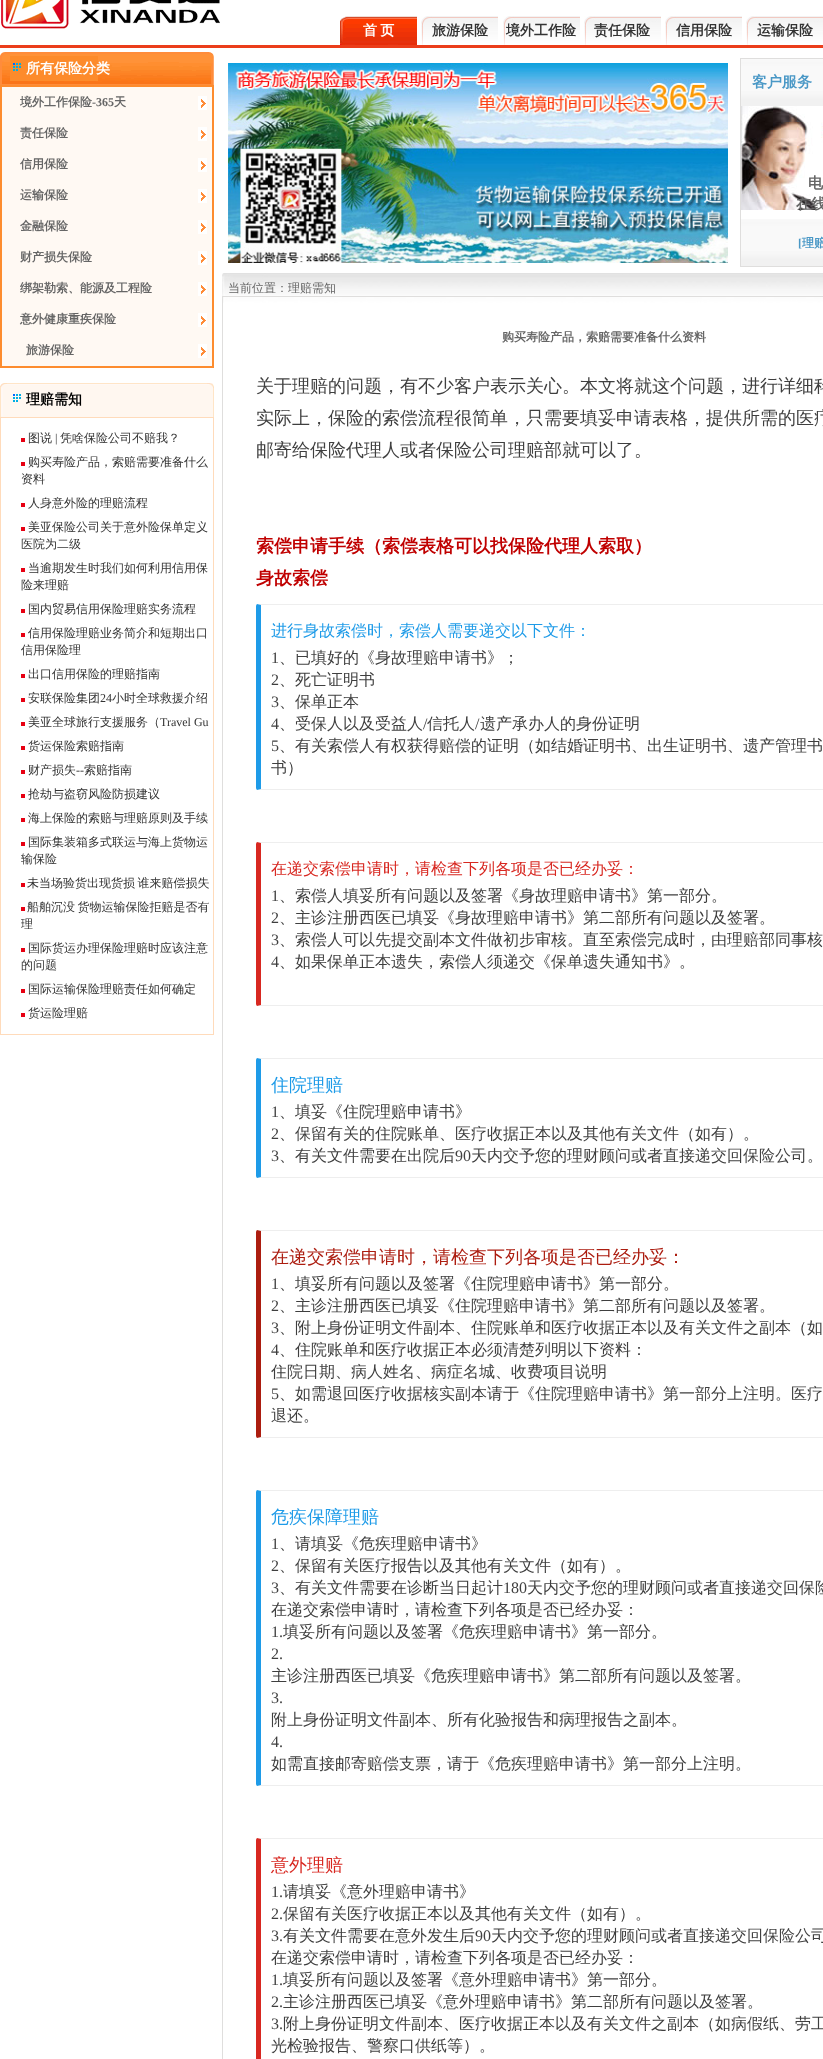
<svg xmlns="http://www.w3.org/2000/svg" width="823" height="2059">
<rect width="100%" height="100%" fill="#fff"/>
<rect y="45" width="823" height="3" fill="#eb3d1a"/>
<image x="1" y="0" width="219" height="29" href="media/1.png"/>
<image x="340" y="16" width="77" height="29" href="media/2.png"/>
<text x="363" y="35" word-spacing="-1" style="font-family:WenQuanYi Zen Hei;font-size:14px;font-weight:bold;fill:#fff">首 页</text>
<image x="421" y="16" width="77" height="29" href="media/3.png"/>
<text x="432" y="35" style="font-family:WenQuanYi Zen Hei;font-size:14px;font-weight:bold;fill:#333">旅游保险</text>
<image x="503" y="16" width="77" height="29" href="media/3.png"/>
<text x="506" y="35" style="font-family:WenQuanYi Zen Hei;font-size:14px;font-weight:bold;fill:#333">境外工作险</text>
<image x="584" y="16" width="77" height="29" href="media/3.png"/>
<text x="594" y="35" style="font-family:WenQuanYi Zen Hei;font-size:14px;font-weight:bold;fill:#333">责任保险</text>
<image x="665" y="16" width="77" height="29" href="media/3.png"/>
<text x="676" y="35" style="font-family:WenQuanYi Zen Hei;font-size:14px;font-weight:bold;fill:#333">信用保险</text>
<image x="746" y="16" width="77" height="29" href="media/3.png"/>
<text x="757" y="35" style="font-family:WenQuanYi Zen Hei;font-size:14px;font-weight:bold;fill:#333">运输保险</text>
<image x="0" y="52" width="214" height="33" href="media/4.png"/>
<image x="13" y="63" width="8" height="8" href="media/5.png"/>
<text x="26" y="73" style="font-family:WenQuanYi Zen Hei;font-size:14px;font-weight:bold;fill:#fff">所有保险分类</text>
<rect x="2" y="87" width="210" height="279" fill="#fff9f3"/>
<rect x="0.5" y="85.5" width="213" height="282" fill="none" stroke="#fd8c2e"/>
<rect x="1.5" y="86.5" width="211" height="280" fill="none" stroke="#fd8c2e"/>
<text x="20" y="106" style="font-family:WenQuanYi Zen Hei;font-size:12px;font-weight:bold;fill:#666">境外工作保险</text>
<text x="92" y="106" style="font-family:Liberation Serif;font-size:12px;font-weight:bold;fill:#666">-365</text>
<text x="114" y="106" style="font-family:WenQuanYi Zen Hei;font-size:12px;font-weight:bold;fill:#666">天</text>
<image x="198" y="96" width="9" height="14" href="media/6.png"/>
<text x="20" y="137" style="font-family:WenQuanYi Zen Hei;font-size:12px;font-weight:bold;fill:#666">责任保险</text>
<image x="198" y="127" width="9" height="14" href="media/6.png"/>
<text x="20" y="168" style="font-family:WenQuanYi Zen Hei;font-size:12px;font-weight:bold;fill:#666">信用保险</text>
<image x="198" y="158" width="9" height="14" href="media/6.png"/>
<text x="20" y="199" style="font-family:WenQuanYi Zen Hei;font-size:12px;font-weight:bold;fill:#666">运输保险</text>
<image x="198" y="189" width="9" height="14" href="media/6.png"/>
<text x="20" y="230" style="font-family:WenQuanYi Zen Hei;font-size:12px;font-weight:bold;fill:#666">金融保险</text>
<image x="198" y="220" width="9" height="14" href="media/6.png"/>
<text x="20" y="261" style="font-family:WenQuanYi Zen Hei;font-size:12px;font-weight:bold;fill:#666">财产损失保险</text>
<image x="198" y="251" width="9" height="14" href="media/6.png"/>
<text x="20" y="292" style="font-family:WenQuanYi Zen Hei;font-size:12px;font-weight:bold;fill:#666">绑架勒索、能源及工程险</text>
<image x="198" y="282" width="9" height="14" href="media/6.png"/>
<text x="20" y="323" style="font-family:WenQuanYi Zen Hei;font-size:12px;font-weight:bold;fill:#666">意外健康重疾保险</text>
<image x="198" y="313" width="9" height="14" href="media/6.png"/>
<text x="26" y="354" style="font-family:WenQuanYi Zen Hei;font-size:12px;font-weight:bold;fill:#666">旅游保险</text>
<image x="198" y="344" width="9" height="14" href="media/6.png"/>
<image x="0" y="383" width="214" height="34" href="media/7.png"/>
<image x="13" y="394" width="8" height="8" href="media/8.png"/>
<text x="26" y="404" style="font-family:WenQuanYi Zen Hei;font-size:14px;font-weight:bold;fill:#000">理赔需知</text>
<rect x="0.5" y="417.5" width="213" height="617" fill="none" stroke="#ffdbbb"/>
<text x="28" y="442" style="font-family:WenQuanYi Zen Hei;font-size:12px;font-weight:500;fill:#333">图说</text>
<rect x="21" y="438" width="4" height="4" fill="#e70012"/>
<text x="55" y="442" style="font-family:Liberation Serif;font-size:12px;fill:#333">|</text>
<text x="60" y="442" style="font-family:WenQuanYi Zen Hei;font-size:12px;font-weight:500;fill:#333">凭啥保险公司不赔我？</text>
<text x="28" y="466" style="font-family:WenQuanYi Zen Hei;font-size:12px;font-weight:500;fill:#333">购买寿险产品，索赔需要准备什么</text>
<rect x="21" y="462" width="4" height="4" fill="#e70012"/>
<text x="21" y="483" style="font-family:WenQuanYi Zen Hei;font-size:12px;font-weight:500;fill:#333">资料</text>
<text x="28" y="507" style="font-family:WenQuanYi Zen Hei;font-size:12px;font-weight:500;fill:#333">人身意外险的理赔流程</text>
<rect x="21" y="503" width="4" height="4" fill="#e70012"/>
<text x="28" y="531" style="font-family:WenQuanYi Zen Hei;font-size:12px;font-weight:500;fill:#333">美亚保险公司关于意外险保单定义</text>
<rect x="21" y="527" width="4" height="4" fill="#e70012"/>
<text x="21" y="548" style="font-family:WenQuanYi Zen Hei;font-size:12px;font-weight:500;fill:#333">医院为二级</text>
<text x="28" y="572" style="font-family:WenQuanYi Zen Hei;font-size:12px;font-weight:500;fill:#333">当逾期发生时我们如何利用信用保</text>
<rect x="21" y="568" width="4" height="4" fill="#e70012"/>
<text x="21" y="589" style="font-family:WenQuanYi Zen Hei;font-size:12px;font-weight:500;fill:#333">险来理赔</text>
<text x="28" y="613" style="font-family:WenQuanYi Zen Hei;font-size:12px;font-weight:500;fill:#333">国内贸易信用保险理赔实务流程</text>
<rect x="21" y="609" width="4" height="4" fill="#e70012"/>
<text x="28" y="637" style="font-family:WenQuanYi Zen Hei;font-size:12px;font-weight:500;fill:#333">信用保险理赔业务简介和短期出口</text>
<rect x="21" y="633" width="4" height="4" fill="#e70012"/>
<text x="21" y="654" style="font-family:WenQuanYi Zen Hei;font-size:12px;font-weight:500;fill:#333">信用保险理</text>
<text x="28" y="678" style="font-family:WenQuanYi Zen Hei;font-size:12px;font-weight:500;fill:#333">出口信用保险的理赔指南</text>
<rect x="21" y="674" width="4" height="4" fill="#e70012"/>
<text x="28" y="702" style="font-family:WenQuanYi Zen Hei;font-size:12px;font-weight:500;fill:#333">安联保险集团</text>
<rect x="21" y="698" width="4" height="4" fill="#e70012"/>
<text x="100" y="702" style="font-family:Liberation Serif;font-size:12px;fill:#333">24</text>
<text x="112" y="702" style="font-family:WenQuanYi Zen Hei;font-size:12px;font-weight:500;fill:#333">小时全球救援介绍</text>
<text x="28" y="726" style="font-family:WenQuanYi Zen Hei;font-size:12px;font-weight:500;fill:#333">美亚全球旅行支援服务（</text>
<rect x="21" y="722" width="4" height="4" fill="#e70012"/>
<text x="160" y="726" style="font-family:Liberation Serif;font-size:12px;fill:#333">Travel Gu</text>
<text x="28" y="750" style="font-family:WenQuanYi Zen Hei;font-size:12px;font-weight:500;fill:#333">货运保险索赔指南</text>
<rect x="21" y="746" width="4" height="4" fill="#e70012"/>
<text x="28" y="774" style="font-family:WenQuanYi Zen Hei;font-size:12px;font-weight:500;fill:#333">财产损失</text>
<rect x="21" y="770" width="4" height="4" fill="#e70012"/>
<text x="76" y="774" style="font-family:Liberation Serif;font-size:12px;fill:#333">--</text>
<text x="84" y="774" style="font-family:WenQuanYi Zen Hei;font-size:12px;font-weight:500;fill:#333">索赔指南</text>
<text x="28" y="798" style="font-family:WenQuanYi Zen Hei;font-size:12px;font-weight:500;fill:#333">抢劫与盗窃风险防损建议</text>
<rect x="21" y="794" width="4" height="4" fill="#e70012"/>
<text x="28" y="822" style="font-family:WenQuanYi Zen Hei;font-size:12px;font-weight:500;fill:#333">海上保险的索赔与理赔原则及手续</text>
<rect x="21" y="818" width="4" height="4" fill="#e70012"/>
<text x="28" y="846" style="font-family:WenQuanYi Zen Hei;font-size:12px;font-weight:500;fill:#333">国际集装箱多式联运与海上货物运</text>
<rect x="21" y="842" width="4" height="4" fill="#e70012"/>
<text x="21" y="863" style="font-family:WenQuanYi Zen Hei;font-size:12px;font-weight:500;fill:#333">输保险</text>
<text x="27" y="887" word-spacing="-1" style="font-family:WenQuanYi Zen Hei;font-size:12px;font-weight:500;fill:#333">未当场验货出现货损 谁来赔偿损失</text>
<rect x="21" y="883" width="4" height="4" fill="#e70012"/>
<text x="27" y="911" word-spacing="-1" style="font-family:WenQuanYi Zen Hei;font-size:12px;font-weight:500;fill:#333">船舶沉没 货物运输保险拒赔是否有</text>
<rect x="21" y="907" width="4" height="4" fill="#e70012"/>
<text x="21" y="928" style="font-family:WenQuanYi Zen Hei;font-size:12px;font-weight:500;fill:#333">理</text>
<text x="28" y="952" style="font-family:WenQuanYi Zen Hei;font-size:12px;font-weight:500;fill:#333">国际货运办理保险理赔时应该注意</text>
<rect x="21" y="948" width="4" height="4" fill="#e70012"/>
<text x="21" y="969" style="font-family:WenQuanYi Zen Hei;font-size:12px;font-weight:500;fill:#333">的问题</text>
<text x="28" y="993" style="font-family:WenQuanYi Zen Hei;font-size:12px;font-weight:500;fill:#333">国际运输保险理赔责任如何确定</text>
<rect x="21" y="989" width="4" height="4" fill="#e70012"/>
<text x="28" y="1017" style="font-family:WenQuanYi Zen Hei;font-size:12px;font-weight:500;fill:#333">货运险理赔</text>
<rect x="21" y="1013" width="4" height="4" fill="#e70012"/>
<image x="228" y="63" width="500" height="200" href="media/9.png"/>
<rect x="740.5" y="58.5" width="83" height="208" fill="none" stroke="#dfdedd"/>
<image x="741" y="59" width="82" height="47" href="media/10.png"/>
<text x="752" y="87" style="font-family:WenQuanYi Zen Hei;font-size:15px;font-weight:bold;fill:#4a98c6">客户服务</text>
<image x="741" y="106" width="82" height="104" href="media/11.png"/>
<text x="808" y="188" style="font-family:WenQuanYi Zen Hei;font-size:15px;font-weight:bold;fill:#666">电</text>
<text x="796" y="209" style="font-family:WenQuanYi Zen Hei;font-size:15px;font-weight:bold;fill:#666">在线</text>
<image x="741" y="219" width="82" height="47" href="media/10.png"/>
<text x="798" y="247" style="font-family:Liberation Serif;font-size:12px;font-weight:bold;fill:#4a98c6">[</text>
<text x="802" y="247" style="font-family:WenQuanYi Zen Hei;font-size:12px;font-weight:bold;fill:#4a98c6">理赔</text>
<image x="222" y="273" width="601" height="30" href="media/12.png"/>
<text x="228" y="292" style="font-family:WenQuanYi Zen Hei;font-size:12px;font-weight:500;fill:#666">当前位置：理赔需知</text>
<rect x="222.5" y="296.5" width="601" height="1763" fill="none" stroke="#dfdedd"/>
<text x="502" y="341" style="font-family:WenQuanYi Zen Hei;font-size:12px;font-weight:bold;fill:#666">购买寿险产品，索赔需要准备什么资料</text>
<text x="256" y="392" style="font-family:WenQuanYi Zen Hei;font-size:18px;font-weight:500;fill:#3f3f3f">关于理赔的问题，有不少客户表示关心。本文将就这个问题，进行详细科</text>
<text x="256" y="424" style="font-family:WenQuanYi Zen Hei;font-size:18px;font-weight:500;fill:#3f3f3f">实际上，保险的索偿流程很简单，只需要填妥申请表格，提供所需的医疗</text>
<text x="256" y="456" style="font-family:WenQuanYi Zen Hei;font-size:18px;font-weight:500;fill:#3f3f3f">邮寄给保险代理人或者保险公司理赔部就可以了。</text>
<text x="256" y="552" style="font-family:WenQuanYi Zen Hei;font-size:18px;font-weight:bold;fill:#c00000">索偿申请手续（索偿表格可以找保险代理人索取）</text>
<text x="256" y="584" style="font-family:WenQuanYi Zen Hei;font-size:18px;font-weight:bold;fill:#c00000">身故索偿</text>
<path d="M259 604h-2l4 1h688l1 1l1-1l-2-1z" fill="#eee"/>
<path d="M259 790h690l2-1l-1-1l-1 1h-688l-4 1z" fill="#eee"/>
<path d="M261 605l-4-1c-1 1-1 2-1 3v180c0 1 0 2 1 3l4-1z" fill="#1e9be8"/>
<text x="271" y="636" style="font-family:WenQuanYi Zen Hei;font-size:16px;font-weight:500;fill:#1e9be8">进行身故索偿时，索偿人需要递交以下文件：</text>
<text x="271" y="663" style="font-family:Liberation Serif;font-size:16px;fill:#3f3f3f">1</text>
<text x="279" y="663" style="font-family:WenQuanYi Zen Hei;font-size:16px;font-weight:500;fill:#3f3f3f">、已填好的《身故理赔申请书》；</text>
<text x="271" y="685" style="font-family:Liberation Serif;font-size:16px;fill:#3f3f3f">2</text>
<text x="279" y="685" style="font-family:WenQuanYi Zen Hei;font-size:16px;font-weight:500;fill:#3f3f3f">、死亡证明书</text>
<text x="271" y="707" style="font-family:Liberation Serif;font-size:16px;fill:#3f3f3f">3</text>
<text x="279" y="707" style="font-family:WenQuanYi Zen Hei;font-size:16px;font-weight:500;fill:#3f3f3f">、保单正本</text>
<text x="271" y="729" style="font-family:Liberation Serif;font-size:16px;fill:#3f3f3f">4</text>
<text x="279" y="729" style="font-family:WenQuanYi Zen Hei;font-size:16px;font-weight:500;fill:#3f3f3f">、受保人以及受益人</text>
<text x="423" y="729" style="font-family:Liberation Serif;font-size:16px;fill:#3f3f3f">/</text>
<text x="427" y="729" style="font-family:WenQuanYi Zen Hei;font-size:16px;font-weight:500;fill:#3f3f3f">信托人</text>
<text x="475" y="729" style="font-family:Liberation Serif;font-size:16px;fill:#3f3f3f">/</text>
<text x="480" y="729" style="font-family:WenQuanYi Zen Hei;font-size:16px;font-weight:500;fill:#3f3f3f">遗产承办人的身份证明</text>
<text x="271" y="751" style="font-family:Liberation Serif;font-size:16px;fill:#3f3f3f">5</text>
<text x="279" y="751" style="font-family:WenQuanYi Zen Hei;font-size:16px;font-weight:500;fill:#3f3f3f">、有关索偿人有权获得赔偿的证明（如结婚证明书、出生证明书、遗产管理书</text>
<text x="271" y="773" style="font-family:WenQuanYi Zen Hei;font-size:16px;font-weight:500;fill:#3f3f3f">书）</text>
<path d="M259 842h-2l4 1h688l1 1l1-1l-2-1z" fill="#eee"/>
<path d="M259 1006h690l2-1l-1-1l-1 1h-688l-4 1z" fill="#eee"/>
<path d="M261 843l-4-1c-1 1-1 2-1 3v158c0 1 0 2 1 3l4-1z" fill="#d82821"/>
<text x="271" y="874" style="font-family:WenQuanYi Zen Hei;font-size:16px;font-weight:500;fill:#d82821">在递交索偿申请时，请检查下列各项是否已经办妥：</text>
<text x="271" y="901" style="font-family:Liberation Serif;font-size:16px;fill:#3f3f3f">1</text>
<text x="279" y="901" style="font-family:WenQuanYi Zen Hei;font-size:16px;font-weight:500;fill:#3f3f3f">、索偿人填妥所有问题以及签署《身故理赔申请书》第一部分。</text>
<text x="271" y="923" style="font-family:Liberation Serif;font-size:16px;fill:#3f3f3f">2</text>
<text x="279" y="923" style="font-family:WenQuanYi Zen Hei;font-size:16px;font-weight:500;fill:#3f3f3f">、主诊注册西医已填妥《身故理赔申请书》第二部所有问题以及签署。</text>
<text x="271" y="945" style="font-family:Liberation Serif;font-size:16px;fill:#3f3f3f">3</text>
<text x="279" y="945" style="font-family:WenQuanYi Zen Hei;font-size:16px;font-weight:500;fill:#3f3f3f">、索偿人可以先提交副本文件做初步审核。直至索偿完成时，由理赔部同事核</text>
<text x="271" y="967" style="font-family:Liberation Serif;font-size:16px;fill:#3f3f3f">4</text>
<text x="279" y="967" style="font-family:WenQuanYi Zen Hei;font-size:16px;font-weight:500;fill:#3f3f3f">、如果保单正本遗失，索偿人须递交《保单遗失通知书》。</text>
<path d="M259 1058h-2l4 1h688l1 1l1-1l-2-1z" fill="#eee"/>
<path d="M259 1178h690l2-1l-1-1l-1 1h-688l-4 1z" fill="#eee"/>
<path d="M261 1059l-4-1c-1 1-1 2-1 3v114c0 1 0 2 1 3l4-1z" fill="#1e9be8"/>
<text x="271" y="1091" style="font-family:WenQuanYi Zen Hei;font-size:18px;font-weight:500;fill:#1e9be8">住院理赔</text>
<text x="271" y="1117" style="font-family:Liberation Serif;font-size:16px;fill:#3f3f3f">1</text>
<text x="279" y="1117" style="font-family:WenQuanYi Zen Hei;font-size:16px;font-weight:500;fill:#3f3f3f">、填妥《住院理赔申请书》</text>
<text x="271" y="1139" style="font-family:Liberation Serif;font-size:16px;fill:#3f3f3f">2</text>
<text x="279" y="1139" style="font-family:WenQuanYi Zen Hei;font-size:16px;font-weight:500;fill:#3f3f3f">、保留有关的住院账单、医疗收据正本以及其他有关文件（如有）。</text>
<text x="271" y="1161" style="font-family:Liberation Serif;font-size:16px;fill:#3f3f3f">3</text>
<text x="279" y="1161" style="font-family:WenQuanYi Zen Hei;font-size:16px;font-weight:500;fill:#3f3f3f">、有关文件需要在出院后</text>
<text x="455" y="1161" style="font-family:Liberation Serif;font-size:16px;fill:#3f3f3f">90</text>
<text x="471" y="1161" style="font-family:WenQuanYi Zen Hei;font-size:16px;font-weight:500;fill:#3f3f3f">天内交予您的理财顾问或者直接递交回保险公司。</text>
<path d="M259 1230h-2l4 1h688l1 1l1-1l-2-1z" fill="#eee"/>
<path d="M259 1438h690l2-1l-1-1l-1 1h-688l-4 1z" fill="#eee"/>
<path d="M261 1231l-4-1c-1 1-1 2-1 3v202c0 1 0 2 1 3l4-1z" fill="#ac1d10"/>
<text x="271" y="1263" style="font-family:WenQuanYi Zen Hei;font-size:18px;font-weight:500;fill:#ac1d10">在递交索偿申请时，请检查下列各项是否已经办妥：</text>
<text x="271" y="1289" style="font-family:Liberation Serif;font-size:16px;fill:#3f3f3f">1</text>
<text x="279" y="1289" style="font-family:WenQuanYi Zen Hei;font-size:16px;font-weight:500;fill:#3f3f3f">、填妥所有问题以及签署《住院理赔申请书》第一部分。</text>
<text x="271" y="1311" style="font-family:Liberation Serif;font-size:16px;fill:#3f3f3f">2</text>
<text x="279" y="1311" style="font-family:WenQuanYi Zen Hei;font-size:16px;font-weight:500;fill:#3f3f3f">、主诊注册西医已填妥《住院理赔申请书》第二部所有问题以及签署。</text>
<text x="271" y="1333" style="font-family:Liberation Serif;font-size:16px;fill:#3f3f3f">3</text>
<text x="279" y="1333" style="font-family:WenQuanYi Zen Hei;font-size:16px;font-weight:500;fill:#3f3f3f">、附上身份证明文件副本、住院账单和医疗收据正本以及有关文件之副本（如</text>
<text x="271" y="1355" style="font-family:Liberation Serif;font-size:16px;fill:#3f3f3f">4</text>
<text x="279" y="1355" style="font-family:WenQuanYi Zen Hei;font-size:16px;font-weight:500;fill:#3f3f3f">、住院账单和医疗收据正本必须清楚列明以下资料：</text>
<text x="271" y="1377" style="font-family:WenQuanYi Zen Hei;font-size:16px;font-weight:500;fill:#3f3f3f">住院日期、病人姓名、病症名城、收费项目说明</text>
<text x="271" y="1399" style="font-family:Liberation Serif;font-size:16px;fill:#3f3f3f">5</text>
<text x="279" y="1399" style="font-family:WenQuanYi Zen Hei;font-size:16px;font-weight:500;fill:#3f3f3f">、如需退回医疗收据核实副本请于《住院理赔申请书》第一部分上注明。医疗</text>
<text x="271" y="1421" style="font-family:WenQuanYi Zen Hei;font-size:16px;font-weight:500;fill:#3f3f3f">退还。</text>
<path d="M259 1490h-2l4 1h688l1 1l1-1l-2-1z" fill="#eee"/>
<path d="M259 1786h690l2-1l-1-1l-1 1h-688l-4 1z" fill="#eee"/>
<path d="M261 1491l-4-1c-1 1-1 2-1 3v290c0 1 0 2 1 3l4-1z" fill="#1e9be8"/>
<text x="271" y="1523" style="font-family:WenQuanYi Zen Hei;font-size:18px;font-weight:500;fill:#1e9be8">危疾保障理赔</text>
<text x="271" y="1549" style="font-family:Liberation Serif;font-size:16px;fill:#3f3f3f">1</text>
<text x="279" y="1549" style="font-family:WenQuanYi Zen Hei;font-size:16px;font-weight:500;fill:#3f3f3f">、请填妥《危疾理赔申请书》</text>
<text x="271" y="1571" style="font-family:Liberation Serif;font-size:16px;fill:#3f3f3f">2</text>
<text x="279" y="1571" style="font-family:WenQuanYi Zen Hei;font-size:16px;font-weight:500;fill:#3f3f3f">、保留有关医疗报告以及其他有关文件（如有）。</text>
<text x="271" y="1593" style="font-family:Liberation Serif;font-size:16px;fill:#3f3f3f">3</text>
<text x="279" y="1593" style="font-family:WenQuanYi Zen Hei;font-size:16px;font-weight:500;fill:#3f3f3f">、有关文件需要在诊断当日起计</text>
<text x="503" y="1593" style="font-family:Liberation Serif;font-size:16px;fill:#3f3f3f">180</text>
<text x="527" y="1593" style="font-family:WenQuanYi Zen Hei;font-size:16px;font-weight:500;fill:#3f3f3f">天内交予您的理财顾问或者直接递交回保险</text>
<text x="271" y="1615" style="font-family:WenQuanYi Zen Hei;font-size:16px;font-weight:500;fill:#3f3f3f">在递交索偿申请时，请检查下列各项是否已经办妥：</text>
<text x="271" y="1637" style="font-family:Liberation Serif;font-size:16px;fill:#3f3f3f">1.</text>
<text x="283" y="1637" style="font-family:WenQuanYi Zen Hei;font-size:16px;font-weight:500;fill:#3f3f3f">填妥所有问题以及签署《危疾理赔申请书》第一部分。</text>
<text x="271" y="1659" style="font-family:Liberation Serif;font-size:16px;fill:#3f3f3f">2.</text>
<text x="271" y="1681" style="font-family:WenQuanYi Zen Hei;font-size:16px;font-weight:500;fill:#3f3f3f">主诊注册西医已填妥《危疾理赔申请书》第二部所有问题以及签署。</text>
<text x="271" y="1703" style="font-family:Liberation Serif;font-size:16px;fill:#3f3f3f">3.</text>
<text x="271" y="1725" style="font-family:WenQuanYi Zen Hei;font-size:16px;font-weight:500;fill:#3f3f3f">附上身份证明文件副本、所有化验报告和病理报告之副本。</text>
<text x="271" y="1747" style="font-family:Liberation Serif;font-size:16px;fill:#3f3f3f">4.</text>
<text x="271" y="1769" style="font-family:WenQuanYi Zen Hei;font-size:16px;font-weight:500;fill:#3f3f3f">如需直接邮寄赔偿支票，请于《危疾理赔申请书》第一部分上注明。</text>
<path d="M259 1838h-2l4 1h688l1 1l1-1l-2-1z" fill="#eee"/>
<path d="M261 1839l-4-1c-1 1-1 2-1 3v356c0 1 0 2 1 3l4-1z" fill="#d82821"/>
<text x="271" y="1871" style="font-family:WenQuanYi Zen Hei;font-size:18px;font-weight:500;fill:#d82821">意外理赔</text>
<text x="271" y="1897" style="font-family:Liberation Serif;font-size:16px;fill:#3f3f3f">1.</text>
<text x="283" y="1897" style="font-family:WenQuanYi Zen Hei;font-size:16px;font-weight:500;fill:#3f3f3f">请填妥《意外理赔申请书》</text>
<text x="271" y="1919" style="font-family:Liberation Serif;font-size:16px;fill:#3f3f3f">2.</text>
<text x="283" y="1919" style="font-family:WenQuanYi Zen Hei;font-size:16px;font-weight:500;fill:#3f3f3f">保留有关医疗收据正本以及其他有关文件（如有）。</text>
<text x="271" y="1941" style="font-family:Liberation Serif;font-size:16px;fill:#3f3f3f">3.</text>
<text x="283" y="1941" style="font-family:WenQuanYi Zen Hei;font-size:16px;font-weight:500;fill:#3f3f3f">有关文件需要在意外发生后</text>
<text x="475" y="1941" style="font-family:Liberation Serif;font-size:16px;fill:#3f3f3f">90</text>
<text x="491" y="1941" style="font-family:WenQuanYi Zen Hei;font-size:16px;font-weight:500;fill:#3f3f3f">天内交予您的理财顾问或者直接递交回保险公司</text>
<text x="271" y="1963" style="font-family:WenQuanYi Zen Hei;font-size:16px;font-weight:500;fill:#3f3f3f">在递交索偿申请时，请检查下列各项是否已经办妥：</text>
<text x="271" y="1985" style="font-family:Liberation Serif;font-size:16px;fill:#3f3f3f">1.</text>
<text x="283" y="1985" style="font-family:WenQuanYi Zen Hei;font-size:16px;font-weight:500;fill:#3f3f3f">填妥所有问题以及签署《意外理赔申请书》第一部分。</text>
<text x="271" y="2007" style="font-family:Liberation Serif;font-size:16px;fill:#3f3f3f">2.</text>
<text x="283" y="2007" style="font-family:WenQuanYi Zen Hei;font-size:16px;font-weight:500;fill:#3f3f3f">主诊注册西医已填妥《意外理赔申请书》第二部所有问题以及签署。</text>
<text x="271" y="2029" style="font-family:Liberation Serif;font-size:16px;fill:#3f3f3f">3.</text>
<text x="283" y="2029" style="font-family:WenQuanYi Zen Hei;font-size:16px;font-weight:500;fill:#3f3f3f">附上身份证明文件副本、医疗收据正本以及有关文件之副本（如病假纸、劳工</text>
<text x="271" y="2051" style="font-family:WenQuanYi Zen Hei;font-size:16px;font-weight:500;fill:#3f3f3f">光检验报告、警察口供纸等）。</text>
</svg>
